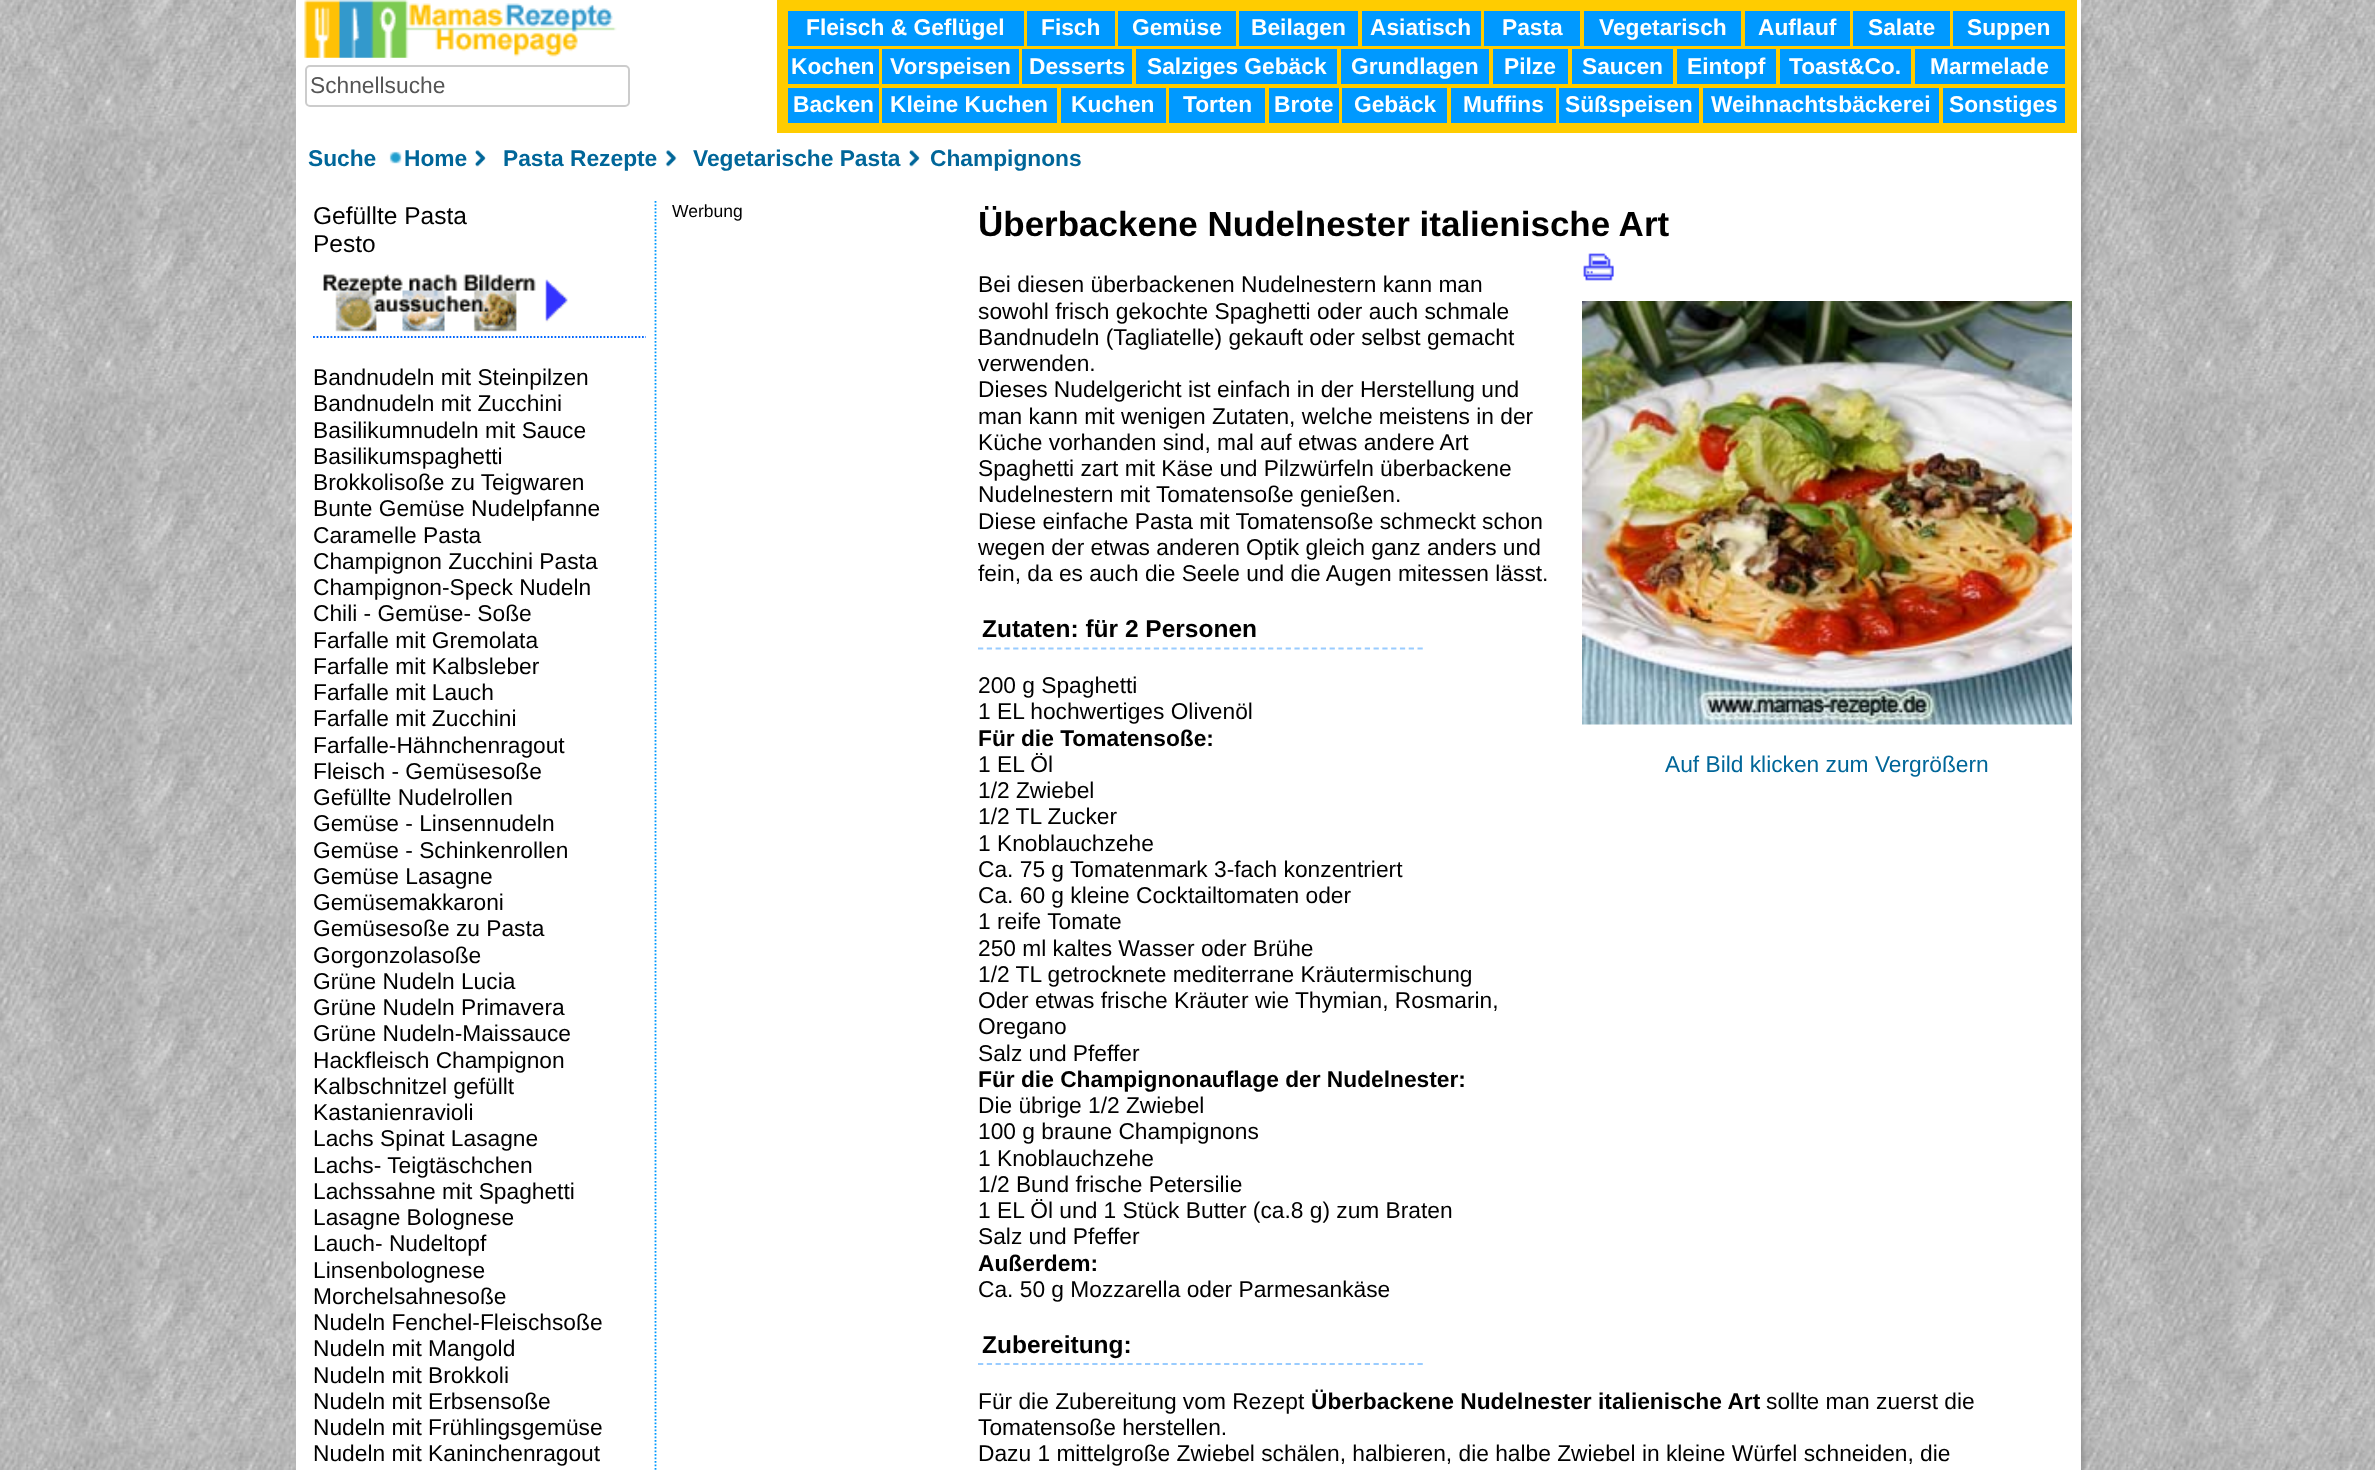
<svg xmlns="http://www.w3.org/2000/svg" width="2375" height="1470">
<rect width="100%" height="100%" fill="#fff"/>
<image x="0" y="0" width="2375" height="1470" href="media/1.png"/>
<rect x="317" y="21" width="1764" height="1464" fill="#777" filter="blur(5px)"/>
<rect x="296" width="1785" height="1470" fill="#fff"/>
<image x="304" y="0" width="313" height="58" href="media/2.png"/>
<rect x="306" y="66" width="323" height="40" rx="4" fill="none" stroke="#ccc" stroke-width="2"/>
<text x="310" y="93" style="font-family:Liberation Sans;font-size:22.75px;fill:#555">Schnellsuche</text>
<rect x="777" width="1300" height="133" fill="#fc0"/>
<rect x="788" y="11" width="236" height="35" fill="#09f"/>
<text x="806" y="35" style="font-family:Liberation Sans;font-size:22.75px;font-weight:bold;fill:#fff">Fleisch &amp; Geflügel</text>
<rect x="1027" y="11" width="88" height="35" fill="#09f"/>
<text x="1041" y="35" style="font-family:Liberation Sans;font-size:22.75px;font-weight:bold;fill:#fff">Fisch</text>
<rect x="1118" y="11" width="118" height="35" fill="#09f"/>
<text x="1132" y="35" style="font-family:Liberation Sans;font-size:22.75px;font-weight:bold;fill:#fff">Gemüse</text>
<rect x="1239" y="11" width="119" height="35" fill="#09f"/>
<text x="1251" y="35" style="font-family:Liberation Sans;font-size:22.75px;font-weight:bold;fill:#fff">Beilagen</text>
<rect x="1362" y="11" width="119" height="35" fill="#09f"/>
<text x="1370" y="35" style="font-family:Liberation Sans;font-size:22.75px;font-weight:bold;fill:#fff">Asiatisch</text>
<rect x="1484" y="11" width="96" height="35" fill="#09f"/>
<text x="1502" y="35" style="font-family:Liberation Sans;font-size:22.75px;font-weight:bold;fill:#fff">Pasta</text>
<rect x="1584" y="11" width="157" height="35" fill="#09f"/>
<text x="1599" y="35" style="font-family:Liberation Sans;font-size:22.75px;font-weight:bold;fill:#fff">Vegetarisch</text>
<rect x="1745" y="11" width="105" height="35" fill="#09f"/>
<text x="1758" y="35" style="font-family:Liberation Sans;font-size:22.75px;font-weight:bold;fill:#fff">Auflauf</text>
<rect x="1853" y="11" width="97" height="35" fill="#09f"/>
<text x="1868" y="35" style="font-family:Liberation Sans;font-size:22.75px;font-weight:bold;fill:#fff">Salate</text>
<rect x="1953" y="11" width="112" height="35" fill="#09f"/>
<text x="1967" y="35" style="font-family:Liberation Sans;font-size:22.75px;font-weight:bold;fill:#fff">Suppen</text>
<rect x="788" y="49" width="91" height="35" fill="#09f"/>
<text x="791" y="74" style="font-family:Liberation Sans;font-size:22.75px;font-weight:bold;fill:#fff">Kochen</text>
<rect x="882" y="49" width="137" height="35" fill="#09f"/>
<text x="890" y="74" style="font-family:Liberation Sans;font-size:22.75px;font-weight:bold;fill:#fff">Vorspeisen</text>
<rect x="1022" y="49" width="110" height="35" fill="#09f"/>
<text x="1029" y="74" style="font-family:Liberation Sans;font-size:22.75px;font-weight:bold;fill:#fff">Desserts</text>
<rect x="1136" y="49" width="201" height="35" fill="#09f"/>
<text x="1147" y="74" style="font-family:Liberation Sans;font-size:22.75px;font-weight:bold;fill:#fff">Salziges Gebäck</text>
<rect x="1341" y="49" width="148" height="35" fill="#09f"/>
<text x="1351" y="74" style="font-family:Liberation Sans;font-size:22.75px;font-weight:bold;fill:#fff">Grundlagen</text>
<rect x="1493" y="49" width="75" height="35" fill="#09f"/>
<text x="1504" y="74" style="font-family:Liberation Sans;font-size:22.75px;font-weight:bold;fill:#fff">Pilze</text>
<rect x="1572" y="49" width="101" height="35" fill="#09f"/>
<text x="1582" y="74" style="font-family:Liberation Sans;font-size:22.75px;font-weight:bold;fill:#fff">Saucen</text>
<rect x="1677" y="49" width="99" height="35" fill="#09f"/>
<text x="1687" y="74" style="font-family:Liberation Sans;font-size:22.75px;font-weight:bold;fill:#fff">Eintopf</text>
<rect x="1780" y="49" width="131" height="35" fill="#09f"/>
<text x="1789" y="74" style="font-family:Liberation Sans;font-size:22.75px;font-weight:bold;fill:#fff">Toast&amp;Co.</text>
<rect x="1915" y="49" width="150" height="35" fill="#09f"/>
<text x="1930" y="74" style="font-family:Liberation Sans;font-size:22.75px;font-weight:bold;fill:#fff">Marmelade</text>
<rect x="788" y="88" width="91" height="35" fill="#09f"/>
<text x="793" y="112" style="font-family:Liberation Sans;font-size:22.75px;font-weight:bold;fill:#fff">Backen</text>
<rect x="882" y="88" width="175" height="35" fill="#09f"/>
<text x="890" y="112" style="font-family:Liberation Sans;font-size:22.75px;font-weight:bold;fill:#fff">Kleine Kuchen</text>
<rect x="1061" y="88" width="105" height="35" fill="#09f"/>
<text x="1071" y="112" style="font-family:Liberation Sans;font-size:22.75px;font-weight:bold;fill:#fff">Kuchen</text>
<rect x="1169" y="88" width="96" height="35" fill="#09f"/>
<text x="1183" y="112" style="font-family:Liberation Sans;font-size:22.75px;font-weight:bold;fill:#fff">Torten</text>
<rect x="1269" y="88" width="70" height="35" fill="#09f"/>
<text x="1274" y="112" style="font-family:Liberation Sans;font-size:22.75px;font-weight:bold;fill:#fff">Brote</text>
<rect x="1342" y="88" width="105" height="35" fill="#09f"/>
<text x="1354" y="112" style="font-family:Liberation Sans;font-size:22.75px;font-weight:bold;fill:#fff">Gebäck</text>
<rect x="1451" y="88" width="105" height="35" fill="#09f"/>
<text x="1463" y="112" style="font-family:Liberation Sans;font-size:22.75px;font-weight:bold;fill:#fff">Muffins</text>
<rect x="1559" y="88" width="140" height="35" fill="#09f"/>
<text x="1565" y="112" style="font-family:Liberation Sans;font-size:22.75px;font-weight:bold;fill:#fff">Süßspeisen</text>
<rect x="1703" y="88" width="236" height="35" fill="#09f"/>
<text x="1711" y="112" style="font-family:Liberation Sans;font-size:22.75px;font-weight:bold;fill:#fff">Weihnachtsbäckerei</text>
<rect x="1943" y="88" width="122" height="35" fill="#09f"/>
<text x="1949" y="112" style="font-family:Liberation Sans;font-size:22.75px;font-weight:bold;fill:#fff">Sonstiges</text>
<text x="308" y="166" style="font-family:Liberation Sans;font-size:22.75px;font-weight:bold;fill:#069">Suche</text>
<image x="389" y="151" width="13" height="13" href="media/3.png"/>
<text x="404" y="166" style="font-family:Liberation Sans;font-size:22.75px;font-weight:bold;fill:#069">Home</text>
<image x="475" y="150" width="11" height="17" href="media/4.png"/>
<text x="503" y="166" style="font-family:Liberation Sans;font-size:22.75px;font-weight:bold;fill:#069">Pasta Rezepte</text>
<image x="665" y="150" width="12" height="17" href="media/5.png"/>
<text x="693" y="166" style="font-family:Liberation Sans;font-size:22.75px;font-weight:bold;fill:#069">Vegetarische Pasta</text>
<image x="909" y="150" width="11" height="17" href="media/6.png"/>
<text x="930" y="166" style="font-family:Liberation Sans;font-size:22.75px;font-weight:bold;fill:#069">Champignons</text>
<path d="M655.5 201v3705" fill="none" stroke="#09f" stroke-width="1.8" stroke-dasharray="1.75 1.75"/>
<text x="313" y="224" style="font-family:Liberation Sans;font-size:24.5px;fill:#000">Gefüllte Pasta</text>
<text x="313" y="252" style="font-family:Liberation Sans;font-size:24.5px;fill:#000">Pesto</text>
<path d="M313 337h333" fill="none" stroke="#06f" stroke-width="1.8" stroke-dasharray="1.75 1.75"/>
<image x="323" y="274" width="245" height="58" href="media/7.png"/>
<text x="313" y="385" style="font-family:Liberation Sans;font-size:22.75px;fill:#000">Bandnudeln mit Steinpilzen</text>
<text x="313" y="411" style="font-family:Liberation Sans;font-size:22.75px;fill:#000">Bandnudeln mit Zucchini</text>
<text x="313" y="438" style="font-family:Liberation Sans;font-size:22.75px;fill:#000">Basilikumnudeln mit Sauce</text>
<text x="313" y="464" style="font-family:Liberation Sans;font-size:22.75px;fill:#000">Basilikumspaghetti</text>
<text x="313" y="490" style="font-family:Liberation Sans;font-size:22.75px;fill:#000">Brokkolisoße zu Teigwaren</text>
<text x="313" y="516" style="font-family:Liberation Sans;font-size:22.75px;fill:#000">Bunte Gemüse Nudelpfanne</text>
<text x="313" y="543" style="font-family:Liberation Sans;font-size:22.75px;fill:#000">Caramelle Pasta</text>
<text x="313" y="569" style="font-family:Liberation Sans;font-size:22.75px;fill:#000">Champignon Zucchini Pasta</text>
<text x="313" y="595" style="font-family:Liberation Sans;font-size:22.75px;fill:#000">Champignon-Speck Nudeln</text>
<text x="313" y="621" style="font-family:Liberation Sans;font-size:22.75px;fill:#000">Chili - Gemüse- Soße</text>
<text x="313" y="648" style="font-family:Liberation Sans;font-size:22.75px;fill:#000">Farfalle mit Gremolata</text>
<text x="313" y="674" style="font-family:Liberation Sans;font-size:22.75px;fill:#000">Farfalle mit Kalbsleber</text>
<text x="313" y="700" style="font-family:Liberation Sans;font-size:22.75px;fill:#000">Farfalle mit Lauch</text>
<text x="313" y="726" style="font-family:Liberation Sans;font-size:22.75px;fill:#000">Farfalle mit Zucchini</text>
<text x="313" y="753" style="font-family:Liberation Sans;font-size:22.75px;fill:#000">Farfalle-Hähnchenragout</text>
<text x="313" y="779" style="font-family:Liberation Sans;font-size:22.75px;fill:#000">Fleisch - Gemüsesoße</text>
<text x="313" y="805" style="font-family:Liberation Sans;font-size:22.75px;fill:#000">Gefüllte Nudelrollen</text>
<text x="313" y="831" style="font-family:Liberation Sans;font-size:22.75px;fill:#000">Gemüse - Linsennudeln</text>
<text x="313" y="858" style="font-family:Liberation Sans;font-size:22.75px;fill:#000">Gemüse - Schinkenrollen</text>
<text x="313" y="884" style="font-family:Liberation Sans;font-size:22.75px;fill:#000">Gemüse Lasagne</text>
<text x="313" y="910" style="font-family:Liberation Sans;font-size:22.75px;fill:#000">Gemüsemakkaroni</text>
<text x="313" y="936" style="font-family:Liberation Sans;font-size:22.75px;fill:#000">Gemüsesoße zu Pasta</text>
<text x="313" y="963" style="font-family:Liberation Sans;font-size:22.75px;fill:#000">Gorgonzolasoße</text>
<text x="313" y="989" style="font-family:Liberation Sans;font-size:22.75px;fill:#000">Grüne Nudeln Lucia</text>
<text x="313" y="1015" style="font-family:Liberation Sans;font-size:22.75px;fill:#000">Grüne Nudeln Primavera</text>
<text x="313" y="1041" style="font-family:Liberation Sans;font-size:22.75px;fill:#000">Grüne Nudeln-Maissauce</text>
<text x="313" y="1068" style="font-family:Liberation Sans;font-size:22.75px;fill:#000">Hackfleisch Champignon</text>
<text x="313" y="1094" style="font-family:Liberation Sans;font-size:22.75px;fill:#000">Kalbschnitzel gefüllt</text>
<text x="313" y="1120" style="font-family:Liberation Sans;font-size:22.75px;fill:#000">Kastanienravioli</text>
<text x="313" y="1146" style="font-family:Liberation Sans;font-size:22.75px;fill:#000">Lachs Spinat Lasagne</text>
<text x="313" y="1173" style="font-family:Liberation Sans;font-size:22.75px;fill:#000">Lachs- Teigtäschchen</text>
<text x="313" y="1199" style="font-family:Liberation Sans;font-size:22.75px;fill:#000">Lachssahne mit Spaghetti</text>
<text x="313" y="1225" style="font-family:Liberation Sans;font-size:22.75px;fill:#000">Lasagne Bolognese</text>
<text x="313" y="1251" style="font-family:Liberation Sans;font-size:22.75px;fill:#000">Lauch- Nudeltopf</text>
<text x="313" y="1278" style="font-family:Liberation Sans;font-size:22.75px;fill:#000">Linsenbolognese</text>
<text x="313" y="1304" style="font-family:Liberation Sans;font-size:22.75px;fill:#000">Morchelsahnesoße</text>
<text x="313" y="1330" style="font-family:Liberation Sans;font-size:22.75px;fill:#000">Nudeln Fenchel-Fleischsoße</text>
<text x="313" y="1356" style="font-family:Liberation Sans;font-size:22.75px;fill:#000">Nudeln mit Mangold</text>
<text x="313" y="1383" style="font-family:Liberation Sans;font-size:22.75px;fill:#000">Nudeln mit Brokkoli</text>
<text x="313" y="1409" style="font-family:Liberation Sans;font-size:22.75px;fill:#000">Nudeln mit Erbsensoße</text>
<text x="313" y="1435" style="font-family:Liberation Sans;font-size:22.75px;fill:#000">Nudeln mit Frühlingsgemüse</text>
<text x="313" y="1461" style="font-family:Liberation Sans;font-size:22.75px;fill:#000">Nudeln mit Kaninchenragout</text>
<text x="672" y="217" style="font-family:Liberation Sans;font-size:17.5px;fill:#000">Werbung</text>
<text x="978" y="236" style="font-family:Liberation Sans;font-size:35px;font-weight:bold;fill:#000">Überbackene Nudelnester italienische Art</text>
<text x="978" y="292" style="font-family:Liberation Sans;font-size:22.75px;fill:#000">Bei diesen überbackenen Nudelnestern kann man</text>
<text x="978" y="319" style="font-family:Liberation Sans;font-size:22.75px;fill:#000">sowohl frisch gekochte Spaghetti oder auch schmale</text>
<text x="978" y="345" style="font-family:Liberation Sans;font-size:22.75px;fill:#000">Bandnudeln (Tagliatelle) gekauft oder selbst gemacht</text>
<text x="978" y="371" style="font-family:Liberation Sans;font-size:22.75px;fill:#000">verwenden.</text>
<text x="978" y="397" style="font-family:Liberation Sans;font-size:22.75px;fill:#000">Dieses Nudelgericht ist einfach in der Herstellung und</text>
<text x="978" y="424" style="font-family:Liberation Sans;font-size:22.75px;fill:#000">man kann mit wenigen Zutaten, welche meistens in der</text>
<text x="978" y="450" style="font-family:Liberation Sans;font-size:22.75px;fill:#000">Küche vorhanden sind, mal auf etwas andere Art</text>
<text x="978" y="476" style="font-family:Liberation Sans;font-size:22.75px;fill:#000">Spaghetti zart mit Käse und Pilzwürfeln überbackene</text>
<text x="978" y="502" style="font-family:Liberation Sans;font-size:22.75px;fill:#000">Nudelnestern mit Tomatensoße genießen.</text>
<text x="978" y="529" style="font-family:Liberation Sans;font-size:22.75px;fill:#000">Diese einfache Pasta mit Tomatensoße schmeckt schon</text>
<text x="978" y="555" style="font-family:Liberation Sans;font-size:22.75px;fill:#000">wegen der etwas anderen Optik gleich ganz anders und</text>
<text x="978" y="581" style="font-family:Liberation Sans;font-size:22.75px;fill:#000">fein, da es auch die Seele und die Augen mitessen lässt.</text>
<path d="M978 648.5h445" fill="none" stroke="#9cf" stroke-width="1.8" stroke-dasharray="5.25 3.54"/>
<text x="982" y="637" style="font-family:Liberation Sans;font-size:24.5px;font-weight:bold;fill:#000">Zutaten: für 2 Personen</text>
<text x="978" y="693" style="font-family:Liberation Sans;font-size:22.75px;fill:#000">200 g Spaghetti</text>
<text x="978" y="719" style="font-family:Liberation Sans;font-size:22.75px;fill:#000">1 EL hochwertiges Olivenöl</text>
<text x="978" y="746" style="font-family:Liberation Sans;font-size:22.75px;font-weight:bold;fill:#000">Für die Tomatensoße:</text>
<text x="978" y="772" style="font-family:Liberation Sans;font-size:22.75px;fill:#000">1 EL Öl</text>
<text x="978" y="798" style="font-family:Liberation Sans;font-size:22.75px;fill:#000">1/2 Zwiebel</text>
<text x="978" y="824" style="font-family:Liberation Sans;font-size:22.75px;fill:#000">1/2 TL Zucker</text>
<text x="978" y="851" style="font-family:Liberation Sans;font-size:22.75px;fill:#000">1 Knoblauchzehe</text>
<text x="978" y="877" style="font-family:Liberation Sans;font-size:22.75px;fill:#000">Ca. 75 g Tomatenmark 3-fach konzentriert</text>
<text x="978" y="903" style="font-family:Liberation Sans;font-size:22.75px;fill:#000">Ca. 60 g kleine Cocktailtomaten oder</text>
<text x="978" y="929" style="font-family:Liberation Sans;font-size:22.75px;fill:#000">1 reife Tomate</text>
<text x="978" y="956" style="font-family:Liberation Sans;font-size:22.75px;fill:#000">250 ml kaltes Wasser oder Brühe</text>
<text x="978" y="982" style="font-family:Liberation Sans;font-size:22.75px;fill:#000">1/2 TL getrocknete mediterrane Kräutermischung</text>
<text x="978" y="1008" style="font-family:Liberation Sans;font-size:22.75px;fill:#000">Oder etwas frische Kräuter wie Thymian, Rosmarin,</text>
<text x="978" y="1034" style="font-family:Liberation Sans;font-size:22.75px;fill:#000">Oregano</text>
<text x="978" y="1061" style="font-family:Liberation Sans;font-size:22.75px;fill:#000">Salz und Pfeffer</text>
<text x="978" y="1087" style="font-family:Liberation Sans;font-size:22.75px;font-weight:bold;fill:#000">Für die Champignonauflage der Nudelnester:</text>
<text x="978" y="1113" style="font-family:Liberation Sans;font-size:22.75px;fill:#000">Die übrige 1/2 Zwiebel</text>
<text x="978" y="1139" style="font-family:Liberation Sans;font-size:22.75px;fill:#000">100 g braune Champignons</text>
<text x="978" y="1166" style="font-family:Liberation Sans;font-size:22.75px;fill:#000">1 Knoblauchzehe</text>
<text x="978" y="1192" style="font-family:Liberation Sans;font-size:22.75px;fill:#000">1/2 Bund frische Petersilie</text>
<text x="978" y="1218" style="font-family:Liberation Sans;font-size:22.75px;fill:#000">1 EL Öl und 1 Stück Butter (ca.8 g) zum Braten</text>
<text x="978" y="1244" style="font-family:Liberation Sans;font-size:22.75px;fill:#000">Salz und Pfeffer</text>
<text x="978" y="1271" style="font-family:Liberation Sans;font-size:22.75px;font-weight:bold;fill:#000">Außerdem:</text>
<text x="978" y="1297" style="font-family:Liberation Sans;font-size:22.75px;fill:#000">Ca. 50 g Mozzarella oder Parmesankäse</text>
<image x="1583" y="253" width="31" height="28" href="media/8.png"/>
<image x="1582" y="301" width="490" height="424" href="media/9.png"/>
<text x="1665" y="772" style="font-family:Liberation Sans;font-size:22.75px;fill:#069">Auf Bild klicken zum Vergrößern</text>
<path d="M978 1364h445" fill="none" stroke="#9cf" stroke-width="1.8" stroke-dasharray="5.25 3.54"/>
<text x="982" y="1353" style="font-family:Liberation Sans;font-size:24.5px;font-weight:bold;fill:#000">Zubereitung:</text>
<text x="978" y="1409" style="font-family:Liberation Sans;font-size:22.75px;fill:#000">Für die Zubereitung vom Rezept</text>
<text x="1311" y="1409" style="font-family:Liberation Sans;font-size:22.75px;font-weight:bold;fill:#000">Überbackene Nudelnester italienische Art</text>
<text x="1766" y="1409" style="font-family:Liberation Sans;font-size:22.75px;fill:#000">sollte man zuerst die</text>
<text x="978" y="1435" style="font-family:Liberation Sans;font-size:22.75px;fill:#000">Tomatensoße herstellen.</text>
<text x="978" y="1461" style="font-family:Liberation Sans;font-size:22.75px;fill:#000">Dazu 1 mittelgroße Zwiebel schälen, halbieren, die halbe Zwiebel in kleine Würfel schneiden, die</text>
</svg>
